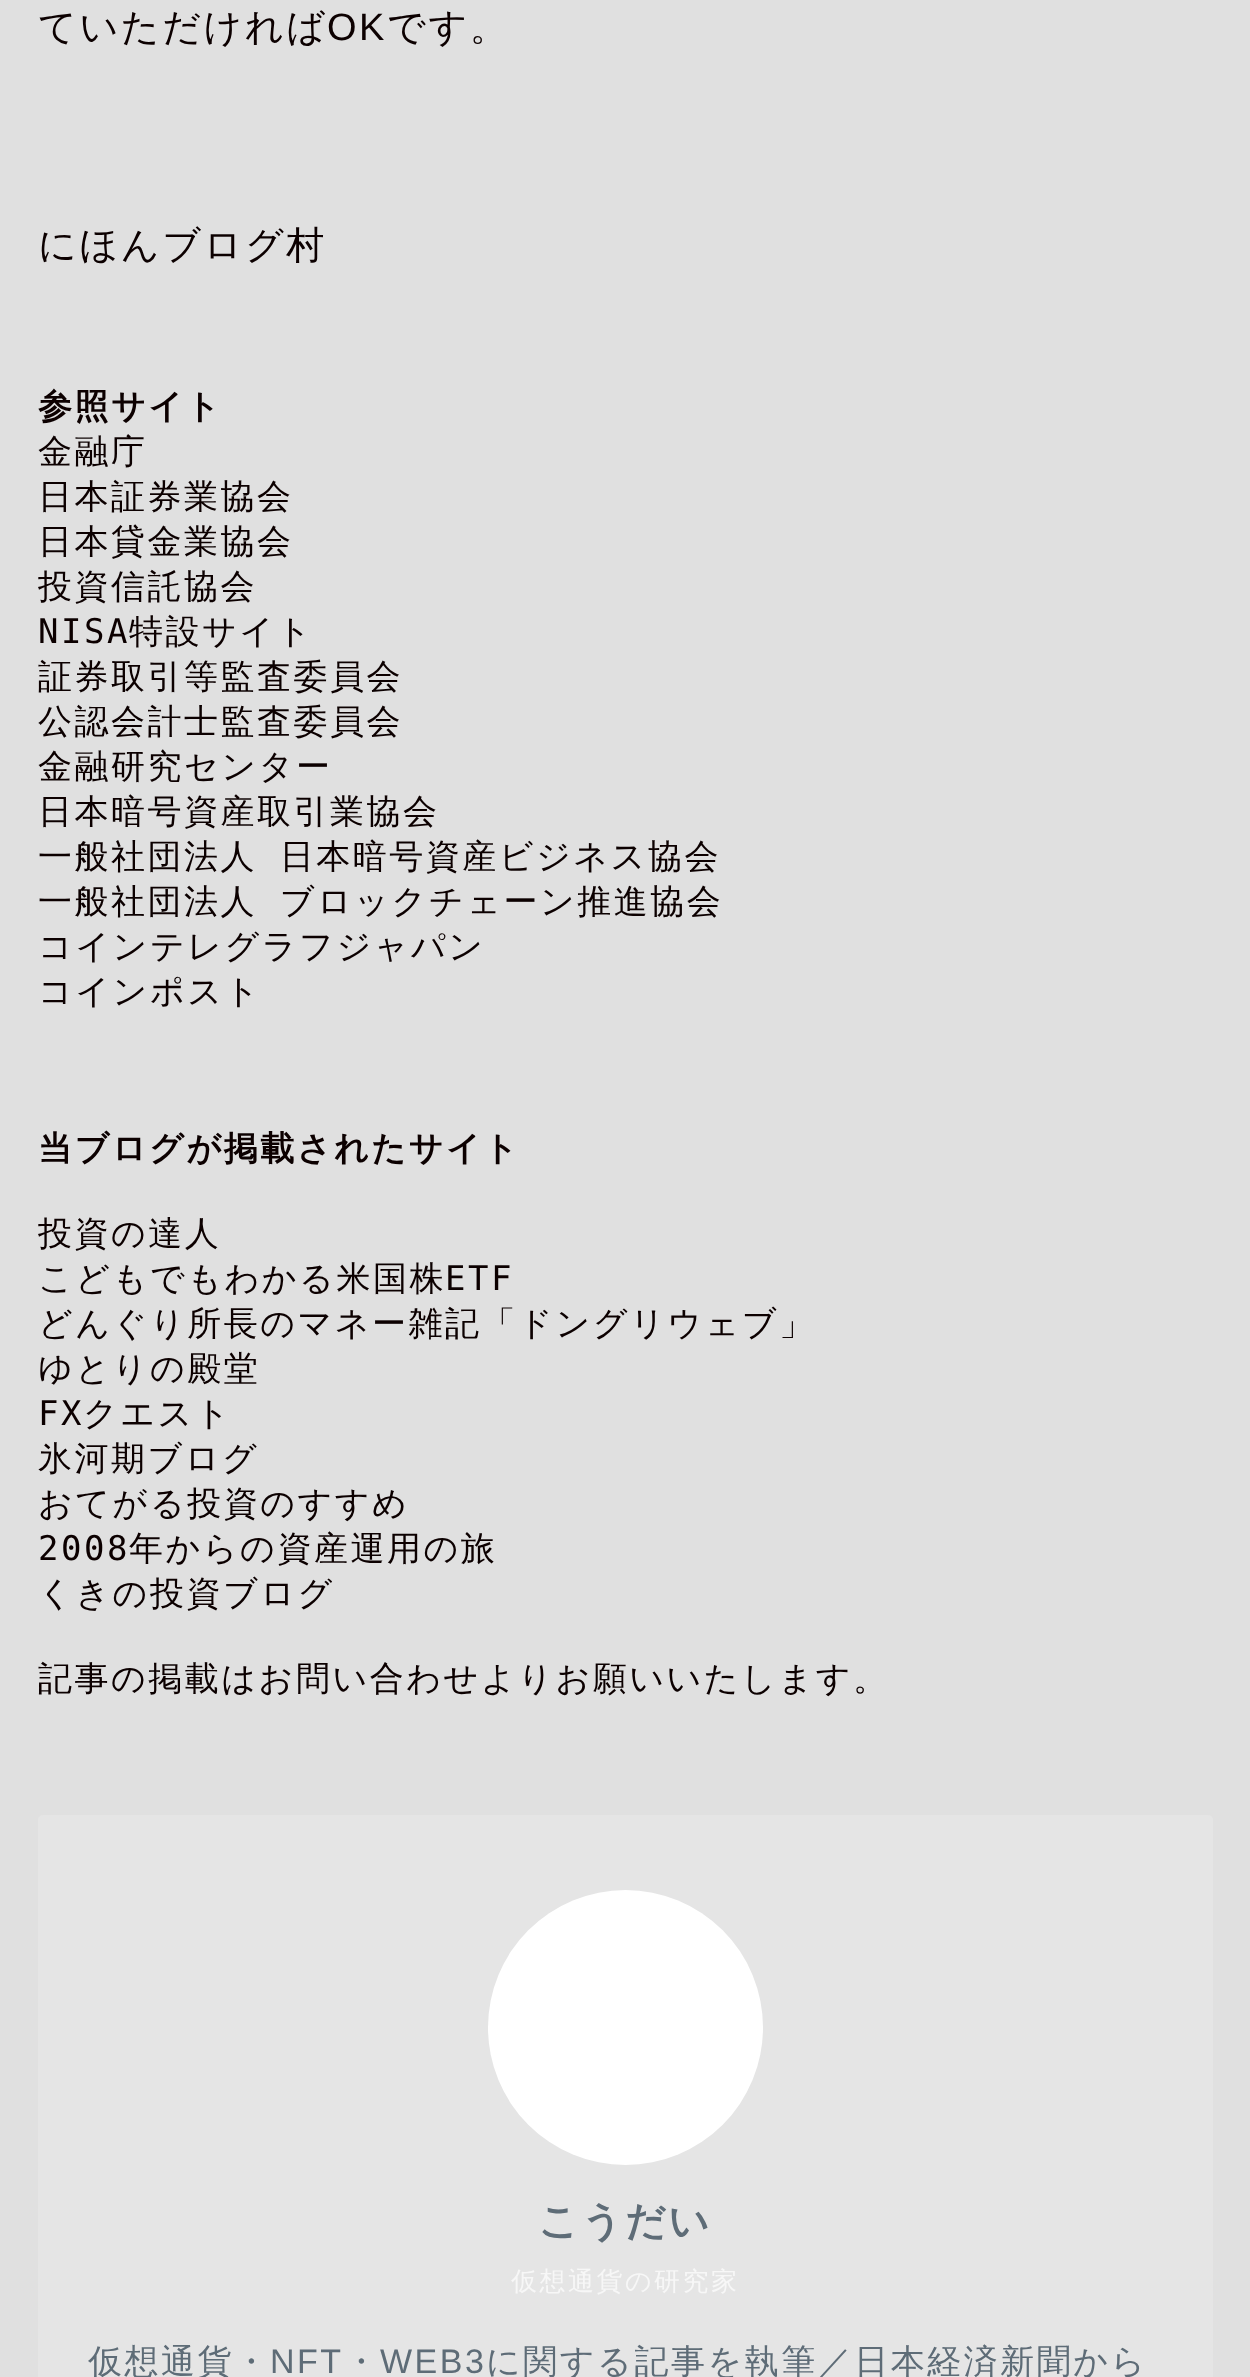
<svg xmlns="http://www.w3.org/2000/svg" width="1250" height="2377">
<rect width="100%" height="100%" fill="#e0e0e0"/>
<text x="38" y="40" style="font-family:WenQuanYi Zen Hei;font-size:38px;font-weight:500;letter-spacing:2.5px;fill:#0c0000">ていただければ</text>
<text x="327" y="40" style="font-family:Liberation Sans;font-size:38px;letter-spacing:2.5px;fill:#0c0000">OK</text>
<text x="387" y="40" style="font-family:WenQuanYi Zen Hei;font-size:38px;font-weight:500;letter-spacing:2.5px;fill:#0c0000">です。</text>
<text x="38" y="258" style="font-family:WenQuanYi Zen Hei;font-size:38px;font-weight:500;letter-spacing:2.5px;fill:#0c0000">にほんブログ村</text>
<text x="38" y="418" style="font-family:WenQuanYi Zen Hei;font-size:34px;font-weight:bold;letter-spacing:2.5px;fill:#0c0000">参照サイト</text>
<text x="38" y="463" style="font-family:WenQuanYi Zen Hei;font-size:34px;font-weight:500;letter-spacing:2.5px;fill:#0c0000">金融庁</text>
<text x="38" y="508" style="font-family:WenQuanYi Zen Hei;font-size:34px;font-weight:500;letter-spacing:2.5px;fill:#0c0000">日本証券業協会</text>
<text x="38" y="553" style="font-family:WenQuanYi Zen Hei;font-size:34px;font-weight:500;letter-spacing:2.5px;fill:#0c0000">日本貸金業協会</text>
<text x="38" y="598" style="font-family:WenQuanYi Zen Hei;font-size:34px;font-weight:500;letter-spacing:2.5px;fill:#0c0000">投資信託協会</text>
<text x="38" y="643" style="font-family:DejaVu Sans Mono;font-size:34px;letter-spacing:2.5px;fill:#0c0000">NISA</text>
<text x="129" y="643" style="font-family:WenQuanYi Zen Hei;font-size:34px;font-weight:500;letter-spacing:2.5px;fill:#0c0000">特設サイト</text>
<text x="38" y="688" style="font-family:WenQuanYi Zen Hei;font-size:34px;font-weight:500;letter-spacing:2.5px;fill:#0c0000">証券取引等監査委員会</text>
<text x="38" y="733" style="font-family:WenQuanYi Zen Hei;font-size:34px;font-weight:500;letter-spacing:2.5px;fill:#0c0000">公認会計士監査委員会</text>
<text x="38" y="778" style="font-family:WenQuanYi Zen Hei;font-size:34px;font-weight:500;letter-spacing:2.5px;fill:#0c0000">金融研究センター</text>
<text x="38" y="823" style="font-family:WenQuanYi Zen Hei;font-size:34px;font-weight:500;letter-spacing:2.5px;fill:#0c0000">日本暗号資産取引業協会</text>
<text x="38" y="868" word-spacing="10" style="font-family:WenQuanYi Zen Hei;font-size:34px;font-weight:500;letter-spacing:2.5px;fill:#0c0000">一般社団法人 日本暗号資産ビジネス協会</text>
<text x="38" y="913" word-spacing="10" style="font-family:WenQuanYi Zen Hei;font-size:34px;font-weight:500;letter-spacing:2.5px;fill:#0c0000">一般社団法人 ブロックチェーン推進協会</text>
<text x="38" y="958" style="font-family:WenQuanYi Zen Hei;font-size:34px;font-weight:500;letter-spacing:2.5px;fill:#0c0000">コインテレグラフジャパン</text>
<text x="38" y="1003" style="font-family:WenQuanYi Zen Hei;font-size:34px;font-weight:500;letter-spacing:2.5px;fill:#0c0000">コインポスト</text>
<text x="38" y="1160" style="font-family:WenQuanYi Zen Hei;font-size:34px;font-weight:bold;letter-spacing:2.5px;fill:#0c0000">当ブログが掲載されたサイト</text>
<text x="38" y="1245" style="font-family:WenQuanYi Zen Hei;font-size:34px;font-weight:500;letter-spacing:2.5px;fill:#0c0000">投資の達人</text>
<text x="38" y="1290" style="font-family:WenQuanYi Zen Hei;font-size:34px;font-weight:500;letter-spacing:2.5px;fill:#0c0000">こどもでもわかる米国株</text>
<text x="445" y="1290" style="font-family:DejaVu Sans Mono;font-size:34px;letter-spacing:2.5px;fill:#0c0000">ETF</text>
<text x="38" y="1335" style="font-family:WenQuanYi Zen Hei;font-size:34px;font-weight:500;letter-spacing:2.5px;fill:#0c0000">どんぐり所長のマネー雑記「ドングリウェブ」</text>
<text x="38" y="1380" style="font-family:WenQuanYi Zen Hei;font-size:34px;font-weight:500;letter-spacing:2.5px;fill:#0c0000">ゆとりの殿堂</text>
<text x="38" y="1425" style="font-family:DejaVu Sans Mono;font-size:34px;letter-spacing:2.5px;fill:#0c0000">FX</text>
<text x="83" y="1425" style="font-family:WenQuanYi Zen Hei;font-size:34px;font-weight:500;letter-spacing:2.5px;fill:#0c0000">クエスト</text>
<text x="38" y="1470" style="font-family:WenQuanYi Zen Hei;font-size:34px;font-weight:500;letter-spacing:2.5px;fill:#0c0000">氷河期ブログ</text>
<text x="38" y="1515" style="font-family:WenQuanYi Zen Hei;font-size:34px;font-weight:500;letter-spacing:2.5px;fill:#0c0000">おてがる投資のすすめ</text>
<text x="38" y="1560" style="font-family:DejaVu Sans Mono;font-size:34px;letter-spacing:2.5px;fill:#0c0000">2008</text>
<text x="129" y="1560" style="font-family:WenQuanYi Zen Hei;font-size:34px;font-weight:500;letter-spacing:2.5px;fill:#0c0000">年からの資産運用の旅</text>
<text x="38" y="1605" style="font-family:WenQuanYi Zen Hei;font-size:34px;font-weight:500;letter-spacing:2.5px;fill:#0c0000">くきの投資ブログ</text>
<text x="38" y="1690" style="font-family:WenQuanYi Zen Hei;font-size:34px;font-weight:500;letter-spacing:2.5px;fill:#0c0000">記事の掲載はお問い合わせよりお願いいたします。</text>
<rect x="38" y="1815" width="1175" height="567" rx="5" fill="#e5e5e5"/>
<circle cx="625.5" cy="2027.5" r="137.5" fill="#fff"/>
<text x="538" y="2235" style="font-family:WenQuanYi Zen Hei;font-size:40px;font-weight:bold;letter-spacing:2.5px;fill:#5e6c77">こうだい</text>
<text x="511" y="2290" style="font-family:WenQuanYi Zen Hei;font-size:26px;font-weight:500;letter-spacing:2.5px;fill:#f7f7f7">仮想通貨の研究家</text>
<text x="88" y="2373" style="font-family:WenQuanYi Zen Hei;font-size:34px;font-weight:500;letter-spacing:2.5px;fill:#5e6c77">仮想通貨・</text>
<text x="270" y="2373" style="font-family:Liberation Sans;font-size:34px;letter-spacing:2.5px;fill:#5e6c77">NFT</text>
<text x="344" y="2373" style="font-family:WenQuanYi Zen Hei;font-size:34px;font-weight:500;letter-spacing:2.5px;fill:#5e6c77">・</text>
<text x="380" y="2373" style="font-family:Liberation Sans;font-size:34px;letter-spacing:2.5px;fill:#5e6c77">WEB3</text>
<text x="486" y="2373" style="font-family:WenQuanYi Zen Hei;font-size:34px;font-weight:500;letter-spacing:2.5px;fill:#5e6c77">に関する記事を執筆／日本経済新聞から</text>
</svg>
